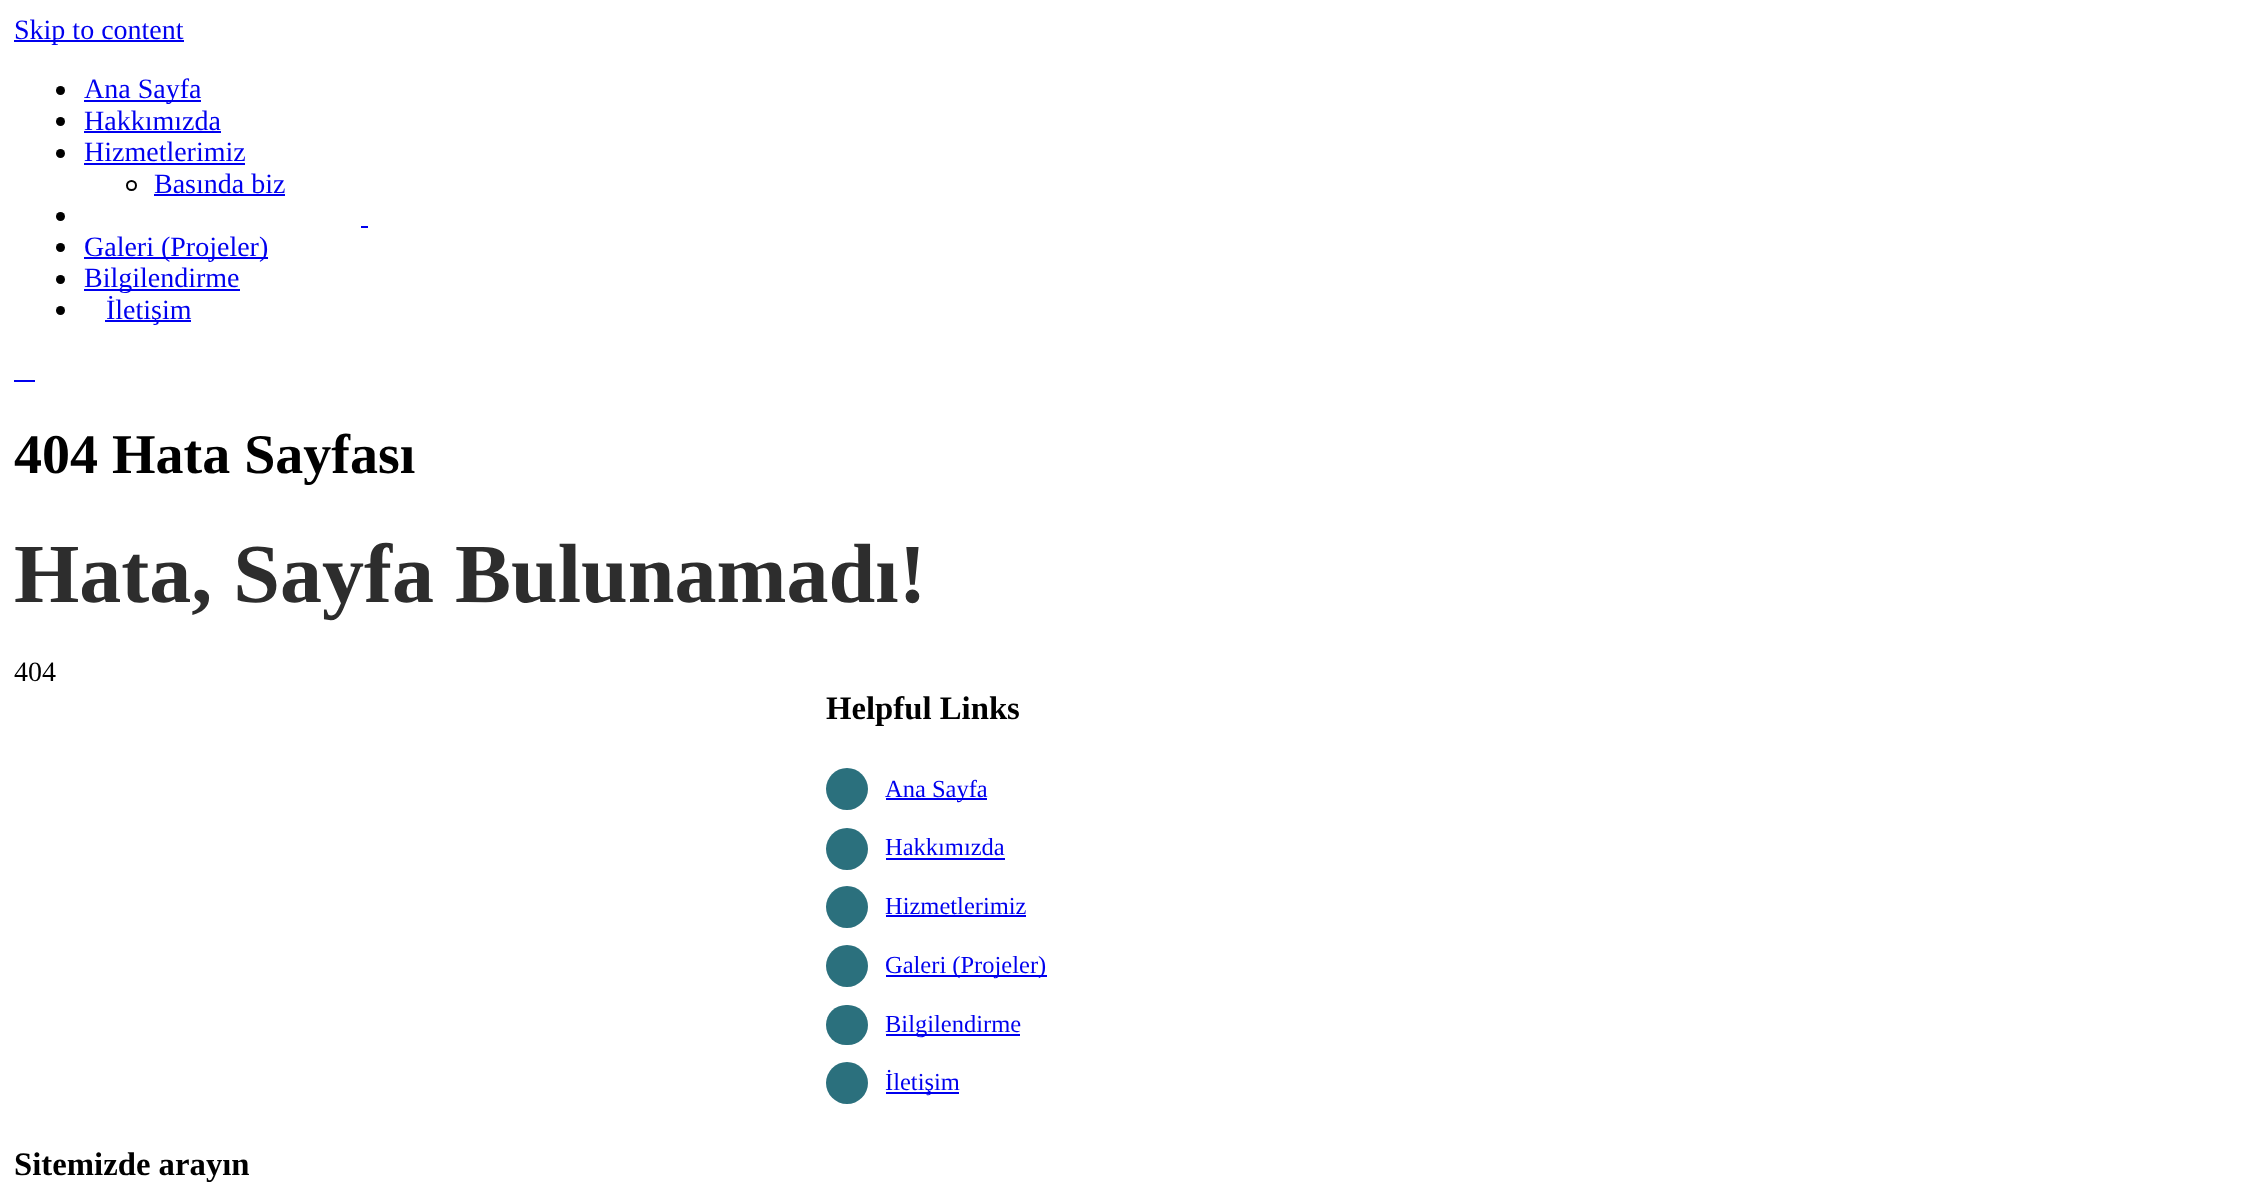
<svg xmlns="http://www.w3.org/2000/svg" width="2253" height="1189">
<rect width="100%" height="100%" fill="#fff"/>
<rect x="14" y="40" width="170" height="2" fill="#00e"/>
<text x="14" y="39" style="font-family:Liberation Serif;font-size:28px;fill:#00e">Skip to content</text>
<circle cx="60.5" cy="90.5" r="4.5" fill="#000"/>
<rect x="84" y="100" width="117" height="2" fill="#00e"/>
<text x="84" y="98" style="font-family:Liberation Serif;font-size:28px;fill:#00e">Ana Sayfa</text>
<circle cx="60.5" cy="121.5" r="4.5" fill="#000"/>
<text x="84" y="130" style="font-family:Liberation Serif;font-size:28px;fill:#00e">Hakkımızda</text>
<rect x="84" y="131" width="137" height="2" fill="#00e"/>
<circle cx="60.5" cy="153.5" r="4.5" fill="#000"/>
<text x="84" y="161" style="font-family:Liberation Serif;font-size:28px;fill:#00e">Hizmetlerimiz</text>
<rect x="84" y="163" width="161" height="2" fill="#00e"/>
<circle cx="131.5" cy="185.5" r="4.5" fill="none" stroke="#000" stroke-width="2"/>
<text x="154" y="193" style="font-family:Liberation Serif;font-size:28px;fill:#00e">Basında biz</text>
<rect x="154" y="194" width="131" height="2" fill="#00e"/>
<circle cx="60.5" cy="216.5" r="4.5" fill="#000"/>
<rect x="361" y="226" width="7" height="2" fill="#00e"/>
<circle cx="60.5" cy="247.5" r="4.5" fill="#000"/>
<rect x="84" y="257" width="184" height="2" fill="#00e"/>
<text x="84" y="256" style="font-family:Liberation Serif;font-size:28px;fill:#00e">Galeri (Projeler)</text>
<circle cx="60.5" cy="279.5" r="4.5" fill="#000"/>
<rect x="84" y="289" width="156" height="2" fill="#00e"/>
<text x="84" y="287" style="font-family:Liberation Serif;font-size:28px;fill:#00e">Bilgilendirme</text>
<circle cx="60.5" cy="310.5" r="4.5" fill="#000"/>
<rect x="105" y="320" width="86" height="2" fill="#00e"/>
<text x="106" y="319" style="font-family:Liberation Serif;font-size:28px;fill:#00e">İletişim</text>
<rect x="14" y="380" width="21" height="2" fill="#00e"/>
<text x="14" y="473" style="font-family:Liberation Serif;font-size:56px;font-weight:bold;fill:#000">404 Hata Sayfası</text>
<text x="14" y="602" style="font-family:Liberation Serif;font-size:84px;font-weight:bold;fill:#2d2d2d">Hata, Sayfa Bulunamadı!</text>
<text x="14" y="681" style="font-family:Liberation Serif;font-size:28px;fill:#000">404</text>
<text x="826" y="719" style="font-family:Liberation Serif;font-size:32.75px;font-weight:bold;fill:#000">Helpful Links</text>
<circle cx="847" cy="789" r="21" fill="#2b707d"/>
<rect x="886" y="798" width="101" height="2" fill="#00e"/>
<text x="885" y="797" style="font-family:Liberation Serif;font-size:24.5px;fill:#00e">Ana Sayfa</text>
<circle cx="847" cy="849" r="21" fill="#2b707d"/>
<text x="885" y="855" style="font-family:Liberation Serif;font-size:24.5px;fill:#00e">Hakkımızda</text>
<rect x="886" y="858" width="119" height="2" fill="#00e"/>
<circle cx="847" cy="907" r="21" fill="#2b707d"/>
<text x="885" y="914" style="font-family:Liberation Serif;font-size:24.5px;fill:#00e">Hizmetlerimiz</text>
<rect x="886" y="915" width="140" height="2" fill="#00e"/>
<circle cx="847" cy="966" r="21" fill="#2b707d"/>
<rect x="886" y="975" width="161" height="2" fill="#00e"/>
<text x="885" y="973" style="font-family:Liberation Serif;font-size:24.5px;fill:#00e">Galeri (Projeler)</text>
<rect x="826" y="1005" width="42" height="40" rx="20" fill="#2b707d"/>
<rect x="886" y="1034" width="134" height="2" fill="#00e"/>
<text x="885" y="1032" style="font-family:Liberation Serif;font-size:24.5px;fill:#00e">Bilgilendirme</text>
<circle cx="847" cy="1083" r="21" fill="#2b707d"/>
<rect x="886" y="1092" width="73" height="2" fill="#00e"/>
<text x="885" y="1090" style="font-family:Liberation Serif;font-size:24.5px;fill:#00e">İletişim</text>
<text x="14" y="1175" style="font-family:Liberation Serif;font-size:32.75px;font-weight:bold;fill:#000">Sitemizde arayın</text>
</svg>
